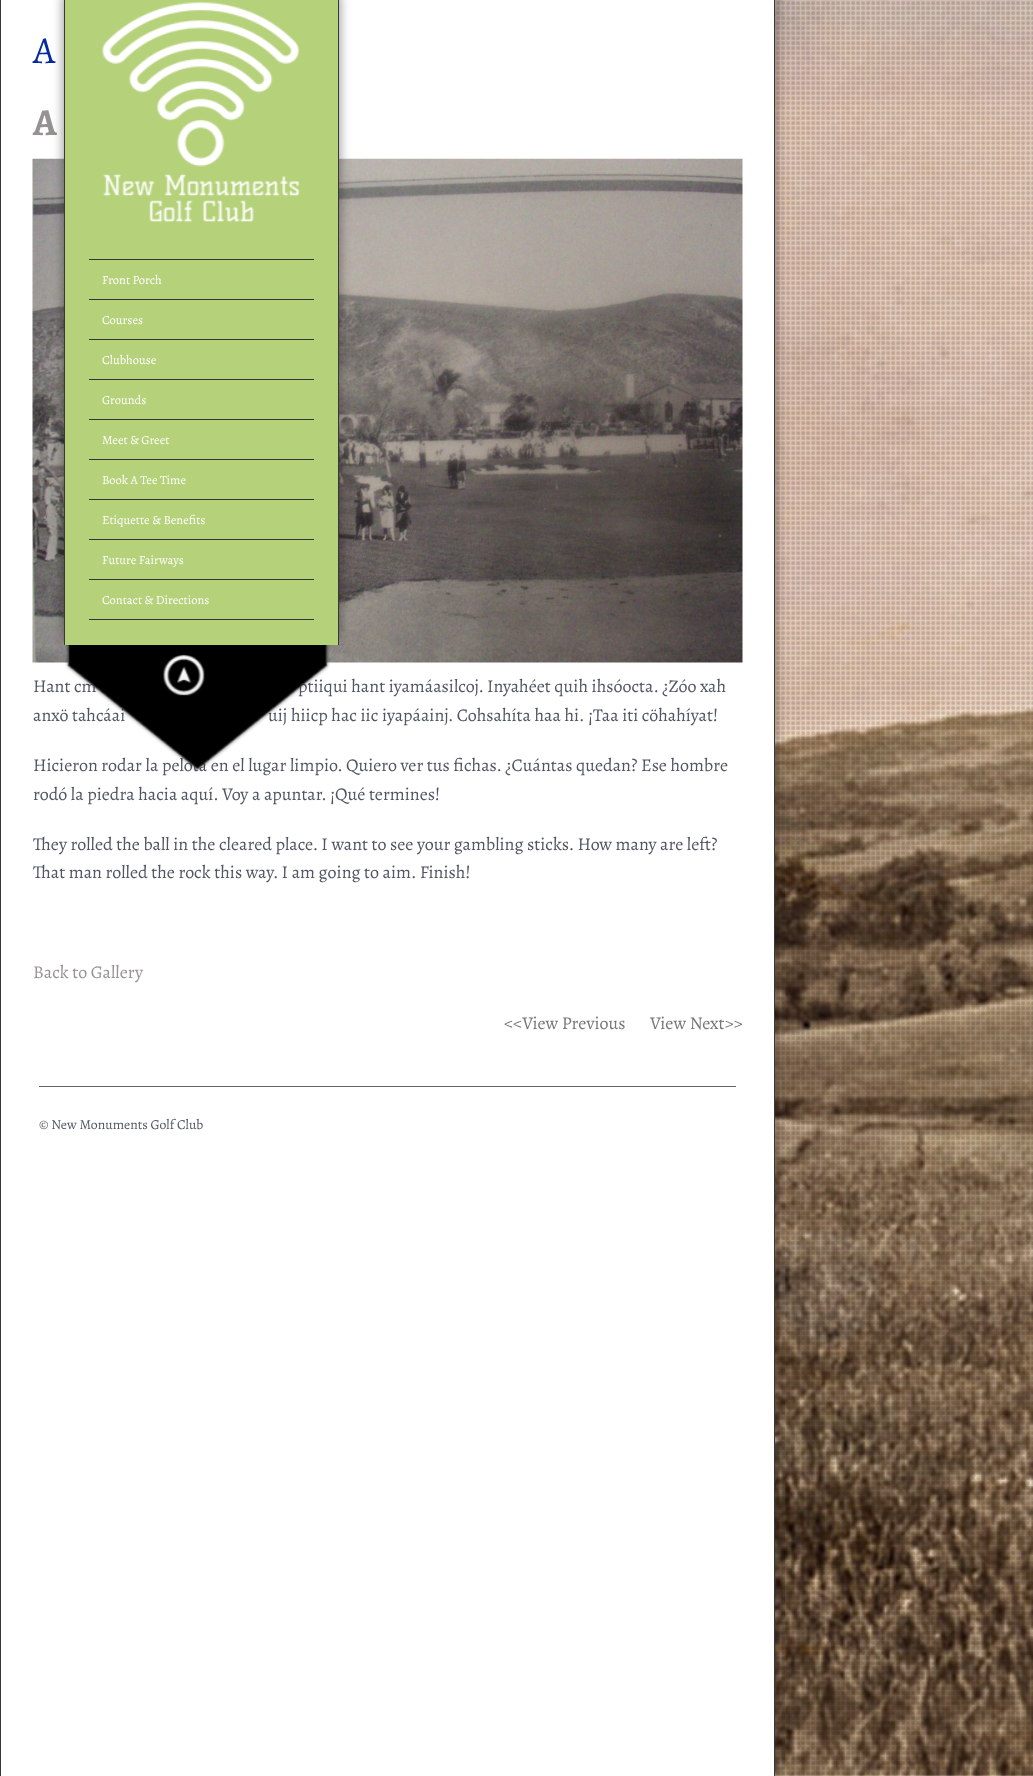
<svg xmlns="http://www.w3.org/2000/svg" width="1033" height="1776">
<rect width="100%" height="100%" fill="#fff"/>
<image x="775" y="0" width="258" height="1776" href="media/1.png"/>
<image x="775" y="0" width="258" height="1776" href="media/3.png"/>
<rect width="775" height="1776" fill="#11111180" filter="blur(6px)"/>
<rect x="1" width="773" height="1776" fill="#fff"/>
<rect x="774" width="1" height="1776" fill="#393836"/>
<rect width="1" height="1776" fill="#393836"/>
<text x="33" y="63" style="font-family:Alegreya;font-size:38px;fill:#062a9f">A</text>
<text x="33" y="135" style="font-family:Alegreya;font-size:38px;font-weight:bold;fill:#969292">A</text>
<image x="32" y="158" width="711" height="505" href="media/2.png"/>
<text x="33" y="692" style="font-family:Alegreya;font-size:18px;fill:#505563">Hant cm</text>
<text x="298" y="692" style="font-family:Alegreya;font-size:18px;fill:#505563">ptiiqui hant iyamáasilcoj. Inyahéet quih ihsóocta. ¿Zóo xah</text>
<text x="33" y="721" style="font-family:Alegreya;font-size:18px;fill:#505563">anxö tahcáai</text>
<text x="268" y="721" style="font-family:Alegreya;font-size:18px;fill:#505563">uij hiicp hac iic iyapáainj. Cohsahíta haa hi. ¡Taa iti cöhahíyat!</text>
<text x="33" y="771" style="font-family:Alegreya;font-size:18px;fill:#505563">Hicieron rodar la pelota en el lugar limpio. Quiero ver tus fichas. ¿Cuántas quedan? Ese hombre</text>
<text x="33" y="800" style="font-family:Alegreya;font-size:18px;fill:#505563">rodó la piedra hacia aquí. Voy a apuntar. ¡Qué termines!</text>
<text x="33" y="850" style="font-family:Alegreya;font-size:18px;fill:#505563">They rolled the ball in the cleared place. I want to see your gambling sticks. How many are left?</text>
<text x="33" y="878" style="font-family:Alegreya;font-size:18px;fill:#505563">That man rolled the rock this way. I am going to aim. Finish!</text>
<text x="33" y="978" style="font-family:Alegreya;font-size:18px;fill:#969292">Back to Gallery</text>
<text x="504" y="1029" style="font-family:Alegreya;font-size:18px;fill:#767676">&lt;&lt;View Previous</text>
<text x="650" y="1029" style="font-family:Alegreya;font-size:18px;fill:#767676">View Next&gt;&gt;</text>
<rect x="39" y="1086" width="697" height="1" fill="#646464"/>
<text x="39" y="1129" style="font-family:Alegreya;font-size:13.75px;fill:#505563">© New Monuments Golf Club</text>
<image x="65" y="645" width="265" height="127" href="media/5.png"/>
<rect x="64" y="-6" width="275" height="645" fill="#11111180" filter="blur(6px)"/>
<rect x="65" width="273" height="645" fill="#b5d179"/>
<rect x="338" width="1" height="645" fill="#393836"/>
<rect x="64" width="1" height="645" fill="#393836"/>
<image x="102" y="2" width="198" height="220" href="media/4.png"/>
<rect x="89" y="259" width="225" height="1" fill="#343434"/>
<rect x="89" y="299" width="225" height="1" fill="#343434"/>
<text x="102" y="284" style="font-family:Alegreya;font-size:12.5px;fill:#fff">Front Porch</text>
<rect x="89" y="339" width="225" height="1" fill="#343434"/>
<text x="102" y="324" style="font-family:Alegreya;font-size:12.5px;fill:#fff">Courses</text>
<rect x="89" y="379" width="225" height="1" fill="#343434"/>
<text x="102" y="364" style="font-family:Alegreya;font-size:12.5px;fill:#fff">Clubhouse</text>
<rect x="89" y="419" width="225" height="1" fill="#343434"/>
<text x="102" y="404" style="font-family:Alegreya;font-size:12.5px;fill:#fff">Grounds</text>
<rect x="89" y="459" width="225" height="1" fill="#343434"/>
<text x="102" y="444" style="font-family:Alegreya;font-size:12.5px;fill:#fff">Meet &amp; Greet</text>
<rect x="89" y="499" width="225" height="1" fill="#343434"/>
<text x="102" y="484" style="font-family:Alegreya;font-size:12.5px;fill:#fff">Book A Tee Time</text>
<rect x="89" y="539" width="225" height="1" fill="#343434"/>
<text x="102" y="524" style="font-family:Alegreya;font-size:12.5px;fill:#fff">Etiquette &amp; Benefits</text>
<rect x="89" y="579" width="225" height="1" fill="#343434"/>
<text x="102" y="564" style="font-family:Alegreya;font-size:12.5px;fill:#fff">Future Fairways</text>
<rect x="89" y="619" width="225" height="1" fill="#343434"/>
<text x="102" y="604" style="font-family:Alegreya;font-size:12.5px;fill:#fff">Contact &amp; Directions</text>
<image x="163" y="654" width="42" height="42" href="media/6.png"/>
</svg>
